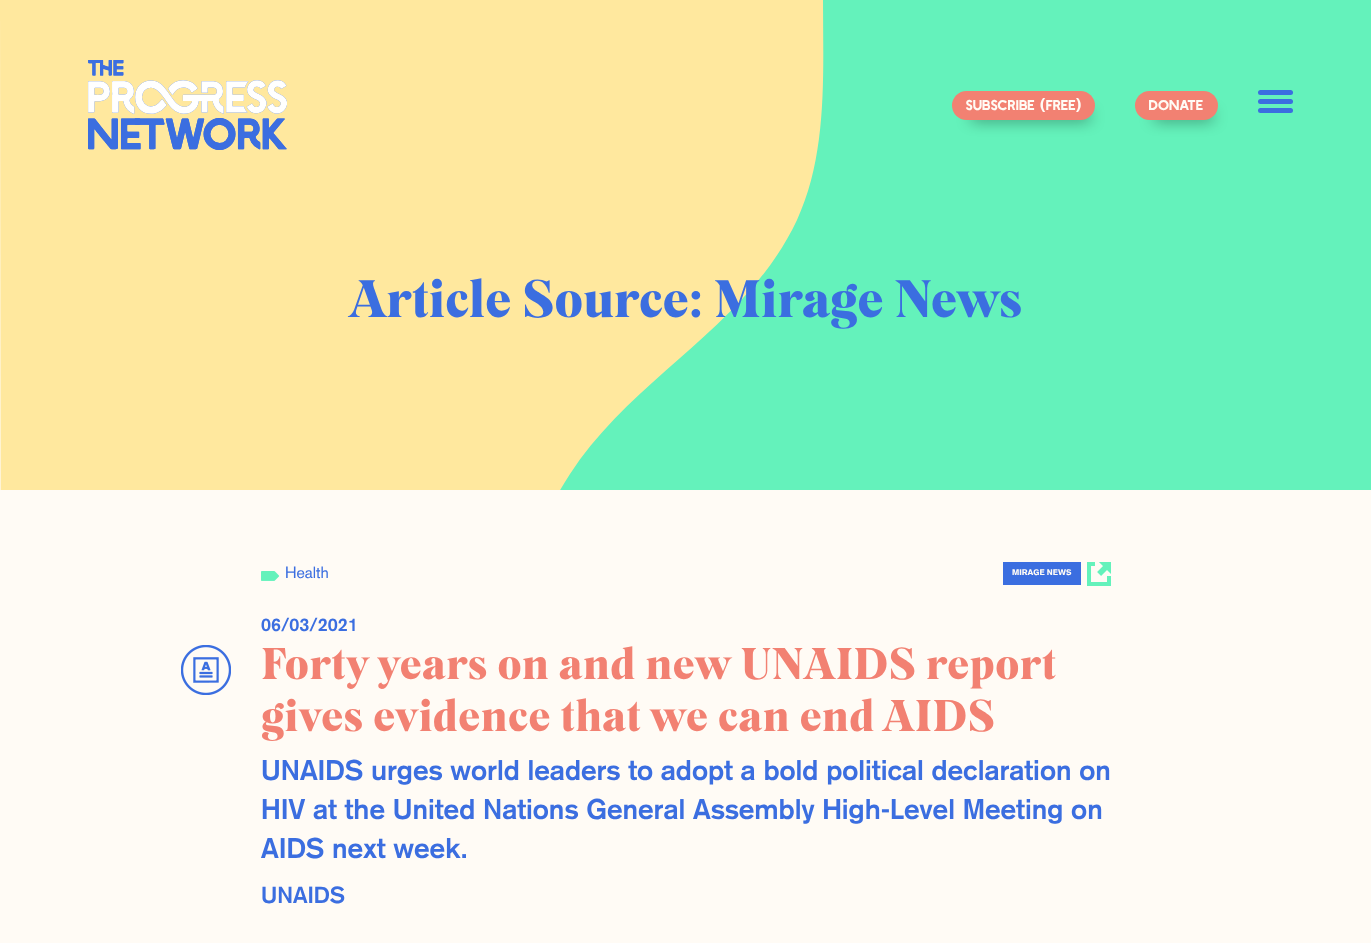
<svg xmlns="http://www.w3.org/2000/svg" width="1371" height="943">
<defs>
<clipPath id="clip1"><rect x="137" width="1234" height="490"/></clipPath>
<clipPath id="clip2"><rect width="1371" height="490"/></clipPath>
</defs>
<rect width="100%" height="100%" fill="#fffbf5"/>
<g clip-path="url(#clip1)">
<path d="M1371-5v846c0 2-2 47-5 45c-65-37-113-65-175-93c-59-27-128-49-202-60c-224-35-498-16-696-92c-94-36-143-92-154-150c-12-65 23-133 94-185c90-64 250-95 321-167c44-43 37-96 37-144z" fill="#64f2bb"/>
</g>
<g clip-path="url(#clip2)">
<path d="M1371 0h-548c0 73 5 153-26 220c-51 108-163 156-227 254c-51 78-75 182-66 280h-503l-1-754z" fill="#ffe89e"/>
</g>
<image x="88" y="60" width="199" height="90" href="media/1.png"/>
<rect x="971" y="114" width="119" height="5" rx="2.5" fill="#000000bf" filter="blur(7.5px)"/>
<rect x="952" y="91" width="143" height="29" rx="14.5" fill="#f28172"/>
<text x="966" y="110" style="font-family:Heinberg;font-size:13px;fill:#fffbf5">SUBSCRIBE (FREE)</text>
<rect x="1154" y="114" width="59" height="5" rx="2.5" fill="#000000bf" filter="blur(7.5px)"/>
<rect x="1135" y="91" width="83" height="29" rx="14.5" fill="#f28172"/>
<text x="1149" y="110" style="font-family:Heinberg;font-size:13px;fill:#fffbf5">DONATE</text>
<rect x="1258" y="108" width="35" height="5" rx="2.5" fill="#3b6ee0"/>
<rect x="1258" y="90" width="35" height="5" rx="2.5" fill="#3b6ee0"/>
<rect x="1258" y="99" width="35" height="5" rx="2.5" fill="#3b6ee0"/>
<text x="349" y="317" style="font-family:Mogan;font-size:51px;letter-spacing:0.1px;fill:#3b6ee0">Article Source: Mirage News</text>
<image x="261" y="571" width="19" height="10" href="media/2.png"/>
<text x="285" y="578" style="font-family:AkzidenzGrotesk;font-size:16px;fill:#3b6ee0">Health</text>
<rect x="1003" y="562" width="78" height="23" fill="#3b6ee0"/>
<text x="1012" y="575" style="font-family:AkzidenzGrotesk;font-size:8px;font-weight:900;fill:#fffbf5">MIRAGE NEWS</text>
<image x="1087" y="562" width="24" height="24" href="media/3.png"/>
<text x="261" y="631" style="font-family:AkzidenzGrotesk;font-size:18px;font-weight:bold;fill:#3b6ee0">06/03/2021</text>
<image x="181" y="645" width="50" height="50" href="media/4.png"/>
<text x="261" y="679" style="font-family:Mogan;font-size:43px;letter-spacing:0.5px;fill:#f28172">Forty years on and new UNAIDS report</text>
<text x="261" y="731" style="font-family:Mogan;font-size:43px;letter-spacing:0.5px;fill:#f28172">gives evidence that we can end AIDS</text>
<text x="261" y="780" style="font-family:AkzidenzGrotesk;font-size:28px;font-weight:bold;fill:#3b6ee0">UNAIDS urges world leaders to adopt a bold political declaration on</text>
<text x="261" y="819" style="font-family:AkzidenzGrotesk;font-size:28px;font-weight:bold;fill:#3b6ee0">HIV at the United Nations General Assembly High-Level Meeting on</text>
<text x="261" y="858" style="font-family:AkzidenzGrotesk;font-size:28px;font-weight:bold;fill:#3b6ee0">AIDS next week.</text>
<text x="261" y="903" style="font-family:AkzidenzGrotesk;font-size:23px;font-weight:bold;fill:#3b6ee0">UNAIDS</text>
</svg>
